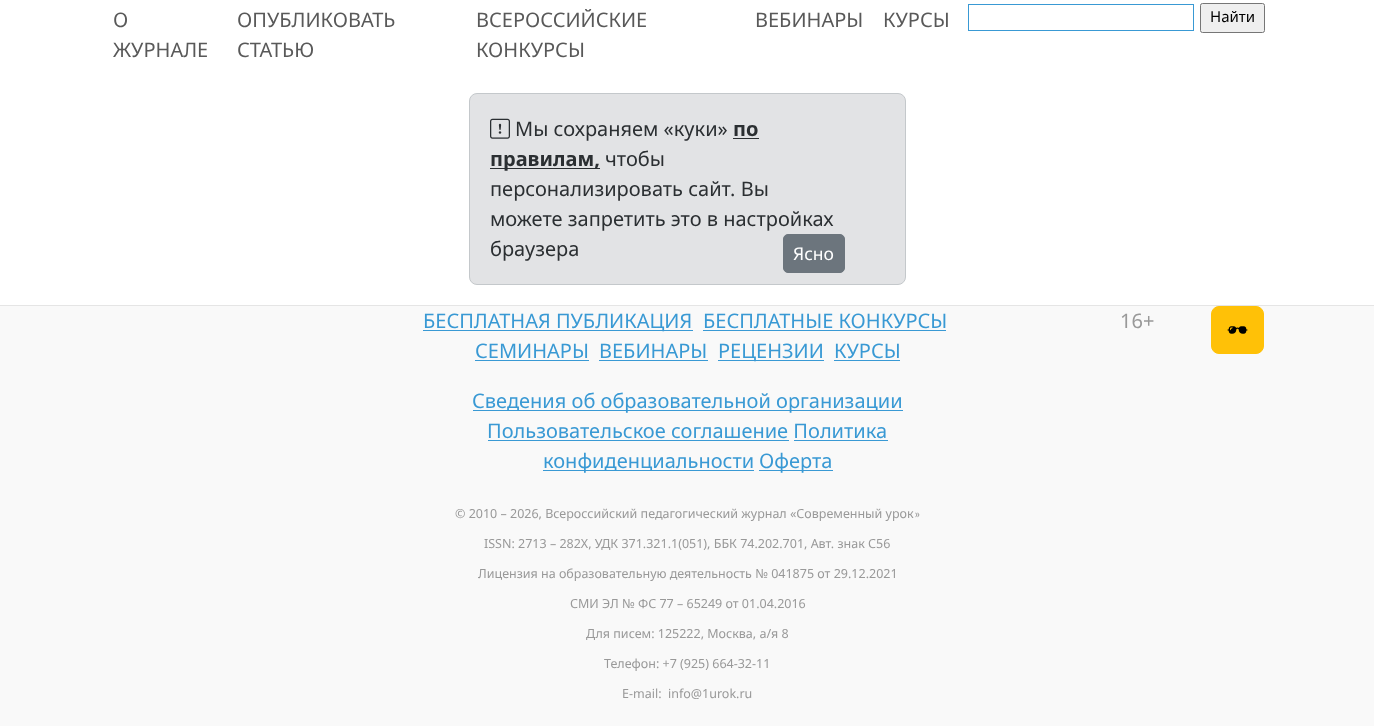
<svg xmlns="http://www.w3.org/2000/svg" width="1374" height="726">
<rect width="100%" height="100%" fill="#fff"/>
<text x="113" y="27" style="font-family:Noto Sans;font-size:20px;fill:#595959">О</text>
<text x="113" y="57" style="font-family:Noto Sans;font-size:20px;fill:#595959">ЖУРНАЛЕ</text>
<text x="237" y="27" style="font-family:Noto Sans;font-size:20px;fill:#595959">ОПУБЛИКОВАТЬ</text>
<text x="237" y="57" style="font-family:Noto Sans;font-size:20px;fill:#595959">СТАТЬЮ</text>
<text x="476" y="27" style="font-family:Noto Sans;font-size:20px;fill:#595959">ВСЕРОССИЙСКИЕ</text>
<text x="476" y="57" style="font-family:Noto Sans;font-size:20px;fill:#595959">КОНКУРСЫ</text>
<text x="755" y="27" style="font-family:Noto Sans;font-size:20px;fill:#595959">ВЕБИНАРЫ</text>
<text x="883" y="27" style="font-family:Noto Sans;font-size:20px;fill:#595959">КУРСЫ</text>
<rect x="968.5" y="4.5" width="225" height="26" fill="none" stroke="#3999d4"/>
<rect x="1200.5" y="3.5" width="64" height="29" rx="2" fill="#efefef" stroke="#767676"/>
<text x="1210" y="22" style="font-family:Noto Sans;font-size:15px;fill:#000">Найти</text>
<rect x="469.5" y="93.5" width="436" height="191" rx="7.5" fill="#e2e3e5" stroke="#c4c8cb"/>
<image x="490" y="118" width="20" height="21" href="media/1.png"/>
<text x="515" y="136" style="font-family:Noto Sans;font-size:20px;fill:#2b2f32">Мы сохраняем «куки»</text>
<text x="733" y="136" style="font-family:Noto Sans;font-size:20px;font-weight:bold;fill:#2b2f32">по</text>
<rect x="733" y="138" width="26" height="1" fill="#2b2f32"/>
<rect x="490" y="168" width="110" height="1" fill="#2b2f32"/>
<text x="490" y="166" style="font-family:Noto Sans;font-size:20px;font-weight:bold;fill:#2b2f32">правилам,</text>
<text x="605" y="166" style="font-family:Noto Sans;font-size:20px;fill:#2b2f32">чтобы</text>
<text x="490" y="196" style="font-family:Noto Sans;font-size:20px;fill:#2b2f32">персонализировать сайт. Вы</text>
<text x="490" y="226" style="font-family:Noto Sans;font-size:20px;fill:#2b2f32">можете запретить это в настройках</text>
<text x="490" y="256" style="font-family:Noto Sans;font-size:20px;fill:#2b2f32">браузера</text>
<rect x="783.5" y="234.5" width="61" height="38" rx="4.5" fill="#6c757d" stroke="#6c757d"/>
<text x="793" y="260" style="font-family:Noto Sans;font-size:17.5px;fill:#fff">Ясно</text>
<rect y="306" width="1374" height="420" fill="#f9f9f9"/>
<rect y="305" width="1374" height="1" fill="#e5e5e5"/>
<rect x="423" y="330" width="270" height="1" fill="#3999d4"/>
<text x="423" y="328" style="font-family:Noto Sans;font-size:20px;fill:#3999d4">БЕСПЛАТНАЯ ПУБЛИКАЦИЯ</text>
<text x="703" y="328" style="font-family:Noto Sans;font-size:20px;fill:#3999d4">БЕСПЛАТНЫЕ КОНКУРСЫ</text>
<rect x="703" y="330" width="243" height="1" fill="#3999d4"/>
<text x="475" y="358" style="font-family:Noto Sans;font-size:20px;fill:#3999d4">СЕМИНАРЫ</text>
<rect x="475" y="360" width="114" height="1" fill="#3999d4"/>
<text x="599" y="358" style="font-family:Noto Sans;font-size:20px;fill:#3999d4">ВЕБИНАРЫ</text>
<rect x="599" y="360" width="109" height="1" fill="#3999d4"/>
<rect x="718" y="360" width="106" height="1" fill="#3999d4"/>
<text x="718" y="358" style="font-family:Noto Sans;font-size:20px;fill:#3999d4">РЕЦЕНЗИИ</text>
<text x="834" y="358" style="font-family:Noto Sans;font-size:20px;fill:#3999d4">КУРСЫ</text>
<rect x="834" y="360" width="66" height="1" fill="#3999d4"/>
<rect x="473" y="410" width="430" height="1" fill="#3999d4"/>
<text x="472" y="408" style="font-family:Noto Sans;font-size:20px;fill:#3999d4">Сведения об образовательной организации</text>
<text x="487" y="438" style="font-family:Noto Sans;font-size:20px;fill:#3999d4">Пользовательское соглашение Политика</text>
<rect x="488" y="440" width="301" height="1" fill="#3999d4"/>
<rect x="543" y="470" width="211" height="1" fill="#3999d4"/>
<text x="543" y="468" style="font-family:Noto Sans;font-size:20px;fill:#3999d4">конфиденциальности</text>
<rect x="794" y="440" width="94" height="1" fill="#3999d4"/>
<rect x="759" y="470" width="74" height="1" fill="#3999d4"/>
<text x="759" y="468" style="font-family:Noto Sans;font-size:20px;fill:#3999d4">Оферта</text>
<text x="455" y="518" style="font-family:Noto Sans;font-size:12.5px;fill:#999">© 2010 – 2026, Всероссийский педагогический журнал «Современный урок</text>
<text x="914" y="518" style="font-family:Carlito;font-size:12.5px;fill:#999">»</text>
<text x="484" y="548" style="font-family:Noto Sans;font-size:12.5px;fill:#999">ISSN: 2713 – 282X, УДК 371.321.1(051), ББК 74.202.701, Авт. знак С56</text>
<text x="478" y="578" style="font-family:Noto Sans;font-size:12.5px;fill:#999">Лицензия на образовательную деятельность № 041875 от 29.12.2021</text>
<text x="570" y="608" style="font-family:Noto Sans;font-size:12.5px;fill:#999">СМИ ЭЛ № ФС 77 – 65249 от 01.04.2016</text>
<text x="586" y="638" style="font-family:Noto Sans;font-size:12.5px;fill:#999">Для писем: 125222, Москва, a/я 8</text>
<text x="604" y="668" style="font-family:Noto Sans;font-size:12.5px;fill:#999">Телефон: +7 (925) 664-32-11</text>
<text x="622" y="698" style="font-family:Noto Sans;font-size:12.5px;fill:#999" xml:space="preserve">E-mail:  info@1urok.ru</text>
<text x="1120" y="328" style="font-family:Noto Sans;font-size:20px;fill:#999">16+</text>
<rect x="1211.5" y="306.5" width="52" height="47" rx="7.5" fill="#ffc107" stroke="#ffc107"/>
<image x="1227" y="326" width="21" height="8" href="media/2.png"/>
</svg>
